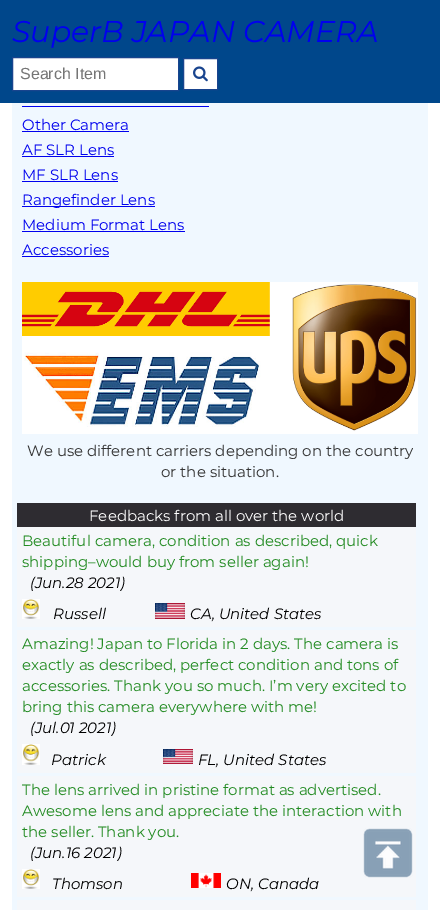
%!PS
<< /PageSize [440 910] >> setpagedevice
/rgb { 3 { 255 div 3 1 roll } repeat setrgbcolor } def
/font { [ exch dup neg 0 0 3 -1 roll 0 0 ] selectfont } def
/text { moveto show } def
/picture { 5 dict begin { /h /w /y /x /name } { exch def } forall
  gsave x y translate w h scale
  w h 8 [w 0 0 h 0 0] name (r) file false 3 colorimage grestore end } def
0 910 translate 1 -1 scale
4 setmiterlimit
255 255 255 rgb
0 0 440 910 rectfill
0 71 139 rgb
0 0 440 103 rectfill
255 255 255 rgb
12.5 57.5 moveto 166 0 rlineto 0 33 rlineto -166 0 rlineto closepath gsave fill grestore
25 68 142 rgb
stroke
255 255 255 rgb
183.5 58.5 moveto 34 0 rlineto 0 31 rlineto -34 0 rlineto closepath gsave fill grestore
25 68 142 rgb
stroke
(img_01.rgb) 193 66 15 16 picture
240 248 255 rgb
12 103 416 807 rectfill
0 0 238 rgb
22 106 187 1 rectfill
22 131 107 1 rectfill
22 156 92 1 rectfill
22 181 96 1 rectfill
22 206 133 1 rectfill
22 231 163 1 rectfill
22 256 87 1 rectfill
(img_02.rgb) 22 282 396 152 picture
46 44 49 rgb
17 503 399 24 rectfill
245 247 250 rgb
17 527 399 100 rectfill
(img_03.rgb) 22 599 18 20 picture
(img_04.rgb) 155 603 30 16 picture
17 630 399 143 rectfill
(img_05.rgb) 22 744 18 21 picture
(img_06.rgb) 163 749 30 15 picture
17 776 399 121 rectfill
(img_03.rgb) 22 869 18 20 picture
(img_07.rgb) 191 873 30 15 picture
17 900 399 10 rectfill
(img_08.rgb) 363 828 50 50 picture
/Montserrat-Italic 30 font
0 0 238 rgb
(SuperB JAPAN CAMERA) 12 42 text
/LiberationSans-Regular 16 font
117 117 117 rgb
(Search Item) 20 79 text
/Montserrat-Regular 15 font
0 0 238 rgb
(Other Camera) 22 130 text
(AF SLR Lens) 22 155 text
(MF SLR Lens) 22 180 text
(Rangefinder Lens) 22 205 text
(Medium Format Lens) 22 230 text
(Accessories) 22 255 text
51 51 51 rgb
(We use different carriers depending on the country) 27 456 text
(or the situation.) 161 477 text
255 255 255 rgb
(Feedbacks from all over the world) 89 521 text
34 139 34 rgb
(Beautiful camera, condition as described, quick) 22 546 text
(shipping–would buy from seller again!) 22 567 text
/Montserrat-Italic 15 font
0 0 0 rgb
(\(Jun.28 2021\)) 30 588 text
(Russell) 53 619 text
(CA, United States) 190 619 text
/Montserrat-Regular 15 font
34 139 34 rgb
(Amazing! Japan to Florida in 2 days. The camera is) 22 649 text
(exactly as described, perfect condition and tons of) 22 670 text
(accessories. Thank you so much. I’m very excited to) 22 691 text
(bring this camera everywhere with me!) 22 712 text
/Montserrat-Italic 15 font
0 0 0 rgb
(\(Jul.01 2021\)) 30 733 text
(Patrick) 51 765 text
(FL, United States) 198 765 text
/Montserrat-Regular 15 font
34 139 34 rgb
(The lens arrived in pristine format as advertised.) 22 795 text
(Awesome lens and appreciate the interaction with) 22 816 text
(the seller. Thank you.) 22 837 text
/Montserrat-Italic 15 font
0 0 0 rgb
(\(Jun.16 2021\)) 30 858 text
(Thomson) 52 889 text
(ON, Canada) 226 889 text
showpage
